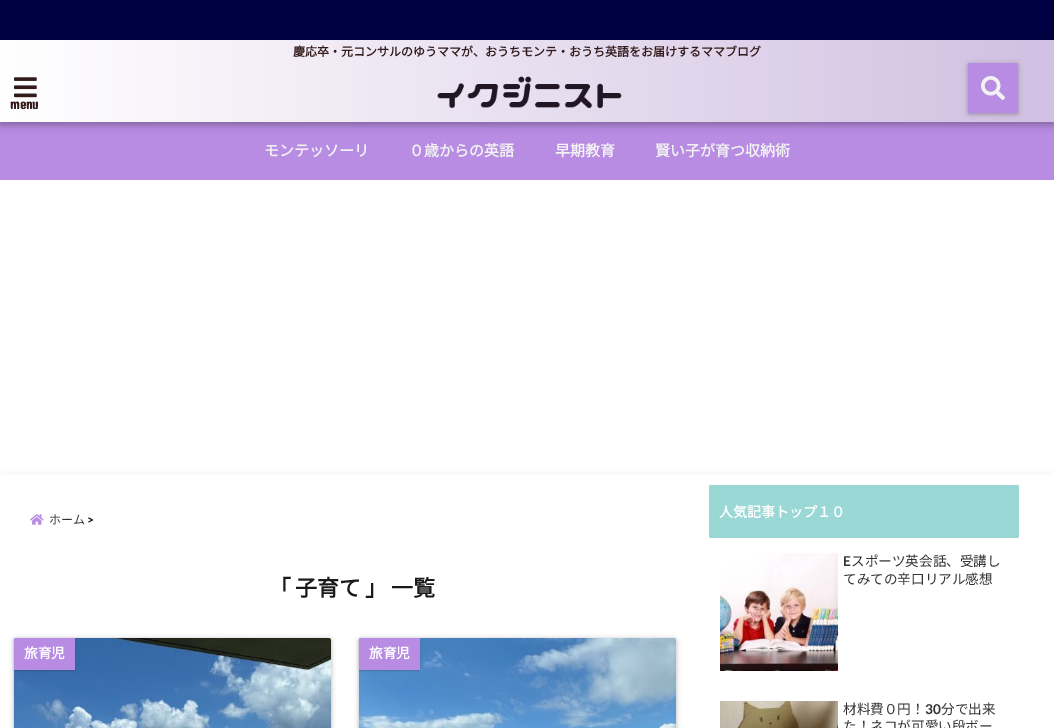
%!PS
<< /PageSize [1054 728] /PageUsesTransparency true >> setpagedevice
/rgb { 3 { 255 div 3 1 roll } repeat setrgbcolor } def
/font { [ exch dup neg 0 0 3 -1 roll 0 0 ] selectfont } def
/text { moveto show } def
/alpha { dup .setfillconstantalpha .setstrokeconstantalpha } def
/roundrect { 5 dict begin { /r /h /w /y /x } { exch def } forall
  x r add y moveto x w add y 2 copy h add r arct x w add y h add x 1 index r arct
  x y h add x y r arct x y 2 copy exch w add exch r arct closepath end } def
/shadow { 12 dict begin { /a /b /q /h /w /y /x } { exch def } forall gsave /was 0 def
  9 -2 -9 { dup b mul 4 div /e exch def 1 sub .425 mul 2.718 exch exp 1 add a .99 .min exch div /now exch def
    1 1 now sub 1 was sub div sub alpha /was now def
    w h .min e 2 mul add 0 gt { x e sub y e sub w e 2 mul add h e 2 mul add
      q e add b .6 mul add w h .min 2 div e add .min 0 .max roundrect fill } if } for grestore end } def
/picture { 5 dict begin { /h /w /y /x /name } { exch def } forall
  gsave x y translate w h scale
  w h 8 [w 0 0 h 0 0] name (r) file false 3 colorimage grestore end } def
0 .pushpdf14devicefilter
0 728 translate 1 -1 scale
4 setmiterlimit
255 255 255 rgb
0 0 1054 728 rectfill
0 1 66 rgb
0 0 1054 40 rectfill
183 140 226 rgb
0 122 1054 58 rectfill
0 0 0 rgb
0 43 1054 82 0 4 0.3 shadow
gsave 0 40 moveto 1054 0 rlineto 0 82 rlineto -1054 0 rlineto closepath clip newpath
<< /ShadingType 2 /ColorSpace /DeviceRGB /Coords [0 81 1054 81] /Extend [true true] /Function << /FunctionType 2 /Domain [0 1] /C0 [1 1 1] /C1 [0.82 0.753 0.886] /N 1 >> >> shfill grestore
(img_01.rgb) 14 77 23 21 picture
(img_02.rgb) 437 76 185 33 picture
968 64 50 50 1.5 2.5 0.3 shadow
183 140 226 rgb
968 63 50 50 1.5 roundrect fill
(img_03.rgb) 981 76 24 24 picture
0 0 0 rgb
5 485 1044 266 0 7.5 0.3 shadow
255 255 255 rgb
0 475 1054 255 2 roundrect fill
(img_04.rgb) 30 514 14 11 picture
0 0 0 rgb
14 639 317 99 2 2.5 0.3 shadow
(img_05.rgb) 14 638 317 90 picture
15 640 59 30 0 1.5 0.3 shadow
183 140 226 rgb
16 638 moveto 59 0 rlineto 0 32 rlineto -61 0 rlineto 0 -30 rlineto 0 -1 1 -2 2 -2 rcurveto closepath fill
0 0 0 rgb
359 639 317 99 2 2.5 0.3 shadow
(img_06.rgb) 359 638 317 90 picture
360 640 59 30 0 1.5 0.3 shadow
183 140 226 rgb
361 638 moveto 59 0 rlineto 0 32 rlineto -61 0 rlineto 0 -30 rlineto 0 -1 1 -2 2 -2 rcurveto closepath fill
153 216 212 rgb
709 485 310 53 2 roundrect fill
(img_07.rgb) 720 553 118 118 picture
(img_08.rgb) 720 701 118 27 picture
/NotoSansJP-Bold 12 font
51 27 27 rgb
(慶応卒・元コンサルのゆうママが、おうちモンテ・おうち英語をお届けするママブログ) 293 56 text
/DenkOne-Bold 12 font
(menu) 10 109 text
/NotoSansJP-Bold 15 font
242 242 242 rgb
(モンテッソーリ) 264 156 text
(０歳からの英語) 409 156 text
(早期教育) 555 156 text
(賢い子が育つ収納術) 655 156 text
/NotoSansJP-Thin 12 font
51 51 51 rgb
(ホーム) 49 524 text
/Lato-Bold 12 font
1 1 1 rgb
(>) 87 524 text
/NotoSansJP-Bold 22 font
26 26 26 rgb
(「) 269 596 text
(子育て) 295 596 text
365 596 moveto -1 0 32 (」 一覧) widthshow
/NotoSansJP-Bold 13.6 font
255 255 255 rgb
(旅育児) 24 658 text
(旅育児) 369 658 text
/NotoSansJP-Bold 14 font
(人気記事トップ１０) 719 517 text
/Lato-Bold 13.6 font
51 51 51 rgb
(E) 843 566 text
/NotoSansJP-Thin 13.6 font
(スポーツ英会話、受講し) 851 566 text
(てみての辛口リアル感想) 843 584 text
(材料費０円！) 843 714 text
/Lato-Bold 13.6 font
(30) 925 714 text
/NotoSansJP-Thin 13.6 font
(分で出来) 941 714 text
(た！ネコが可愛い段ボー) 843 731 text
.poppdf14devicefilter showpage
